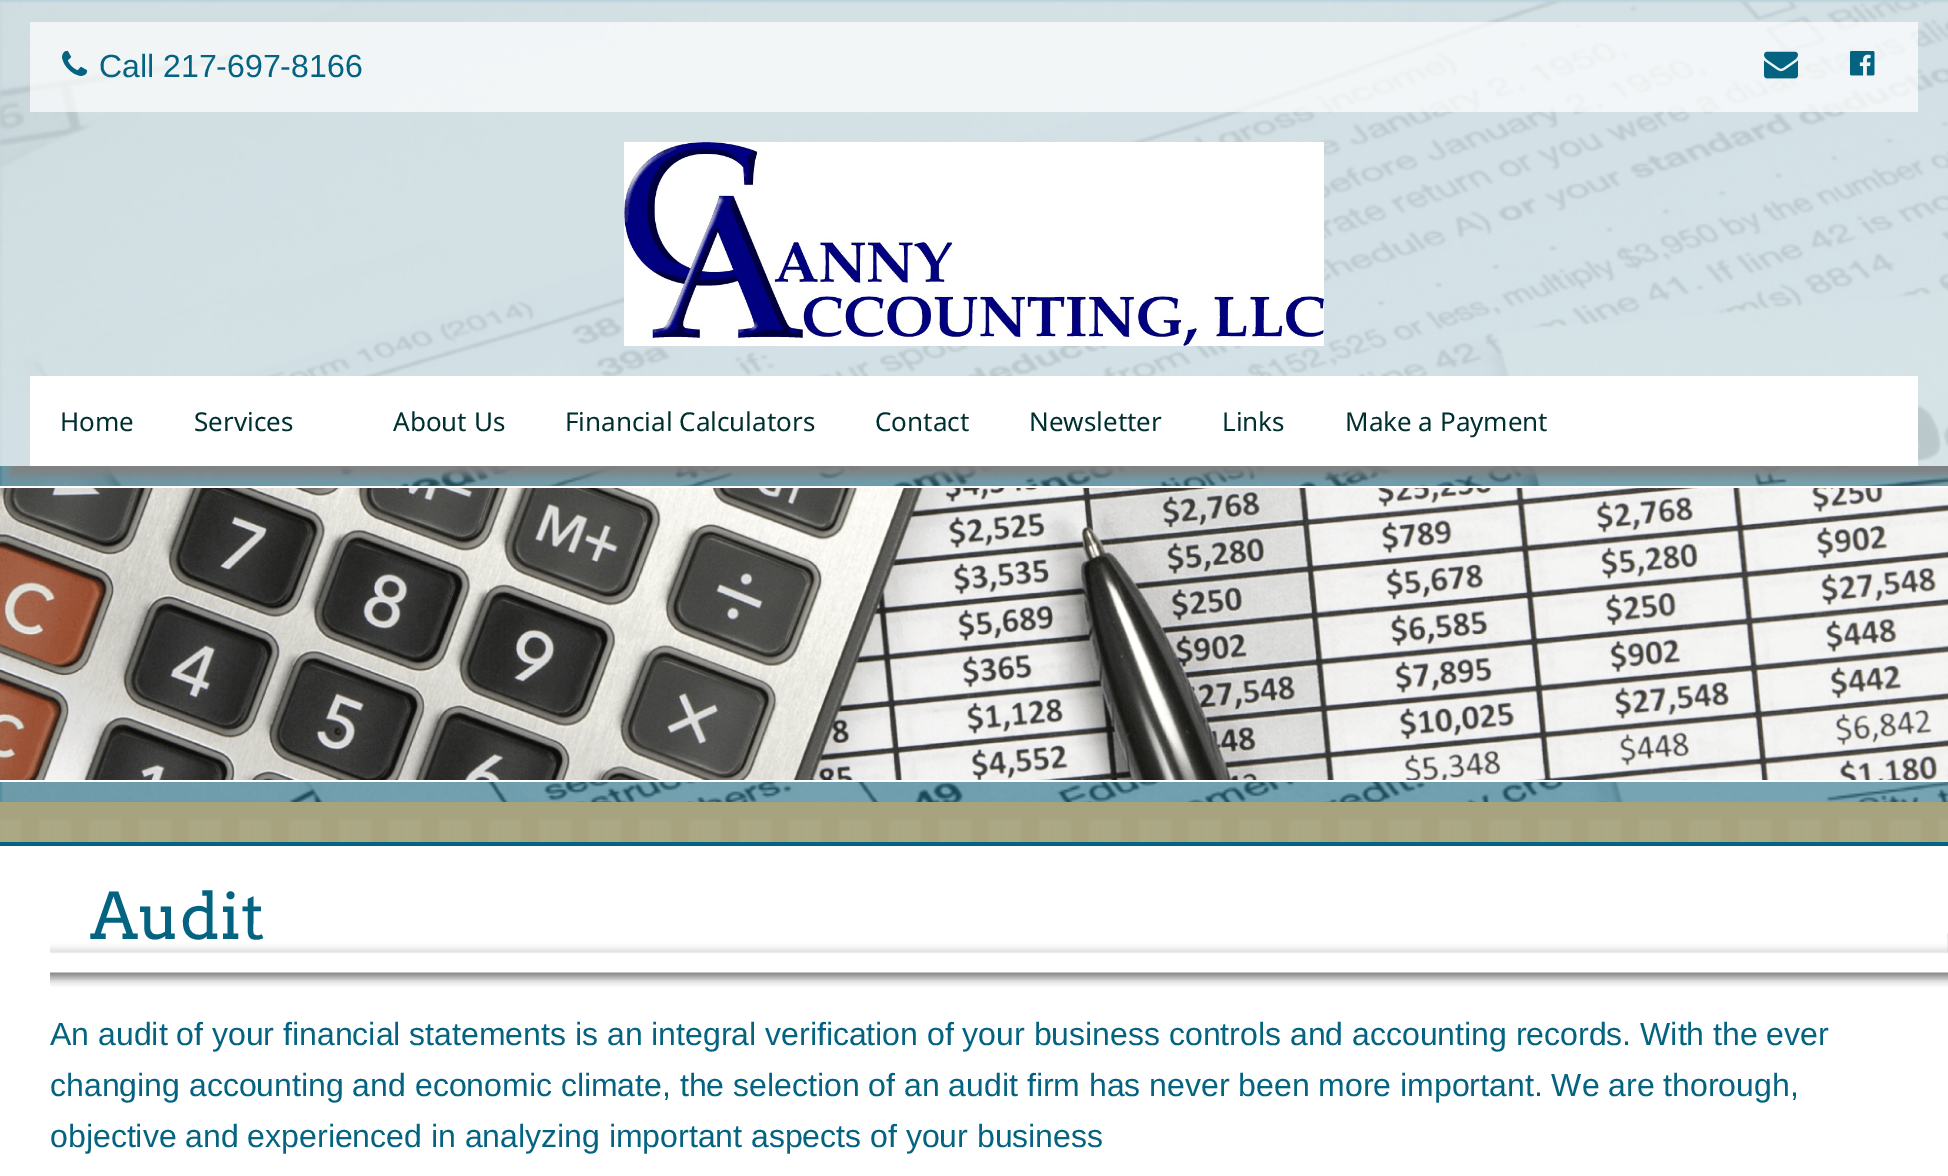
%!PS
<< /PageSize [1948 1176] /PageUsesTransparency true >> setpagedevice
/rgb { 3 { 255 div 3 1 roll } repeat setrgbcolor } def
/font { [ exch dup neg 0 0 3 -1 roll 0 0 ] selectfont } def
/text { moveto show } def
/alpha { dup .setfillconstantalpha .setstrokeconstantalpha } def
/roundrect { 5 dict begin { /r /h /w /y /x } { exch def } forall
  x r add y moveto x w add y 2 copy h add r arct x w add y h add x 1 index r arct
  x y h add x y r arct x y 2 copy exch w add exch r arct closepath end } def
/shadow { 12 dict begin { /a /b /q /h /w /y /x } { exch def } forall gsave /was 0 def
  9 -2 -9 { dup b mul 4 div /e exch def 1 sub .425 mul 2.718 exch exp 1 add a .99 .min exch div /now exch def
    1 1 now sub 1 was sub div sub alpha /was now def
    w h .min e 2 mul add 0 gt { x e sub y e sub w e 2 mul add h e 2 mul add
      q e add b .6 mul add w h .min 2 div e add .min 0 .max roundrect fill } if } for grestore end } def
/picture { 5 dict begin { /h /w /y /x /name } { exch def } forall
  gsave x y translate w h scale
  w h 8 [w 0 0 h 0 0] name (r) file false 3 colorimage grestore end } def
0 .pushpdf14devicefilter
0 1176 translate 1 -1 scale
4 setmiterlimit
4 99 128 rgb
0 0 1948 1176 rectfill
(img_01.rgb) 0 0 1948 802 picture
gsave
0 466 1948 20 rectclip
128 128 128 rgb
10 10 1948 466 0 5 1 shadow
grestore
0.7 alpha
255 255 255 rgb
0 0 1948 466 rectfill
30 22 1888 90 rectfill
1 alpha
(img_02.rgb) 62 50 26 26 picture
(img_03.rgb) 1764 51 34 28 picture
(img_04.rgb) 1850 51 25 25 picture
(img_05.rgb) 624 142 700 204 picture
1578 376 340 90 rectfill
30 376 134 90 rectfill
164 376 1414 90 rectfill
0 486 1948 2 rectfill
0 780 1948 2 rectfill
(img_06.rgb) 0 488 1948 292 picture
167 163 126 rgb
0 802 1948 40 rectfill
(img_07.rgb) 0 819 1948 23 picture
255 255 255 rgb
0 846 1948 330 rectfill
(img_08.rgb) 50 933 1898 54 picture
/LiberationSans-Regular 32 font
4 99 128 rgb
(Call 217-697-8166) 99 77 text
/NotoSans-Regular 26 font
0 47 47 rgb
(Home) 60 431 text
(Services) 194 431 text
(About Us) 393 431 text
(Financial Calculators) 565 431 text
(Contact) 875 431 text
(Newsletter) 1029 431 text
(Links) 1222 431 text
(Make a Payment) 1345 431 text
/Arvo-Regular 64 font
4 99 128 rgb
(Audit) 90 939 text
/LiberationSans-Regular 32 font
(An audit of your financial statements is an integral verification of your business controls and accounting records. With the ever) 50 1045 text
(changing accounting and economic climate, the selection of an audit firm has never been more important. We are thorough,) 50 1096 text
(objective and experienced in analyzing important aspects of your business) 50 1147 text
.poppdf14devicefilter showpage
